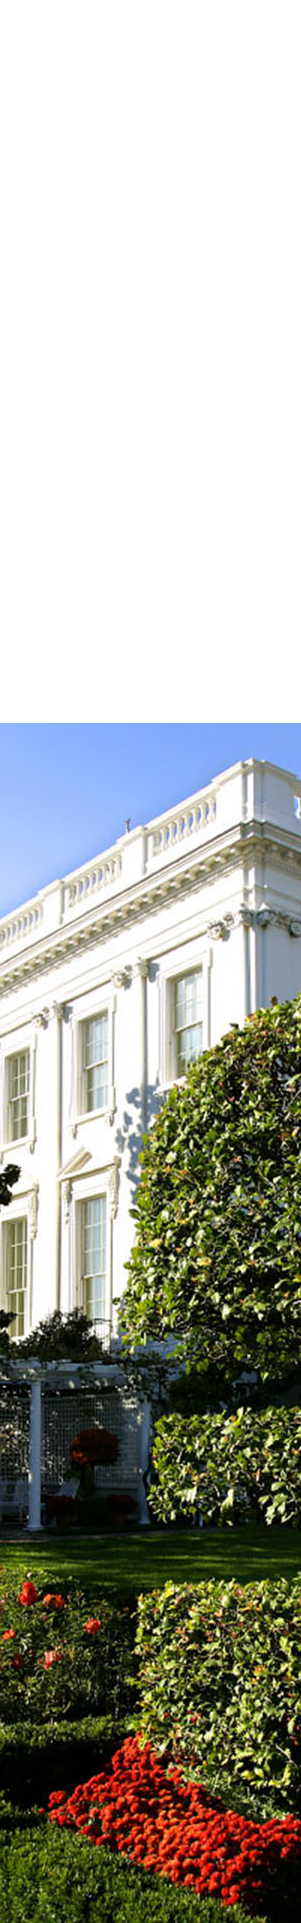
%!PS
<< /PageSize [301 1923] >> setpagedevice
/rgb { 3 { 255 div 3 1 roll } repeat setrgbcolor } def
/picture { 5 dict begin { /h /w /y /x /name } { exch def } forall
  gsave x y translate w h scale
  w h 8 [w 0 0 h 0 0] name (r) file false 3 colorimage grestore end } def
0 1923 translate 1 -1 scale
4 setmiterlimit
255 255 255 rgb
0 0 301 1923 rectfill
(img_01.rgb) 0 723 301 1200 picture
showpage
